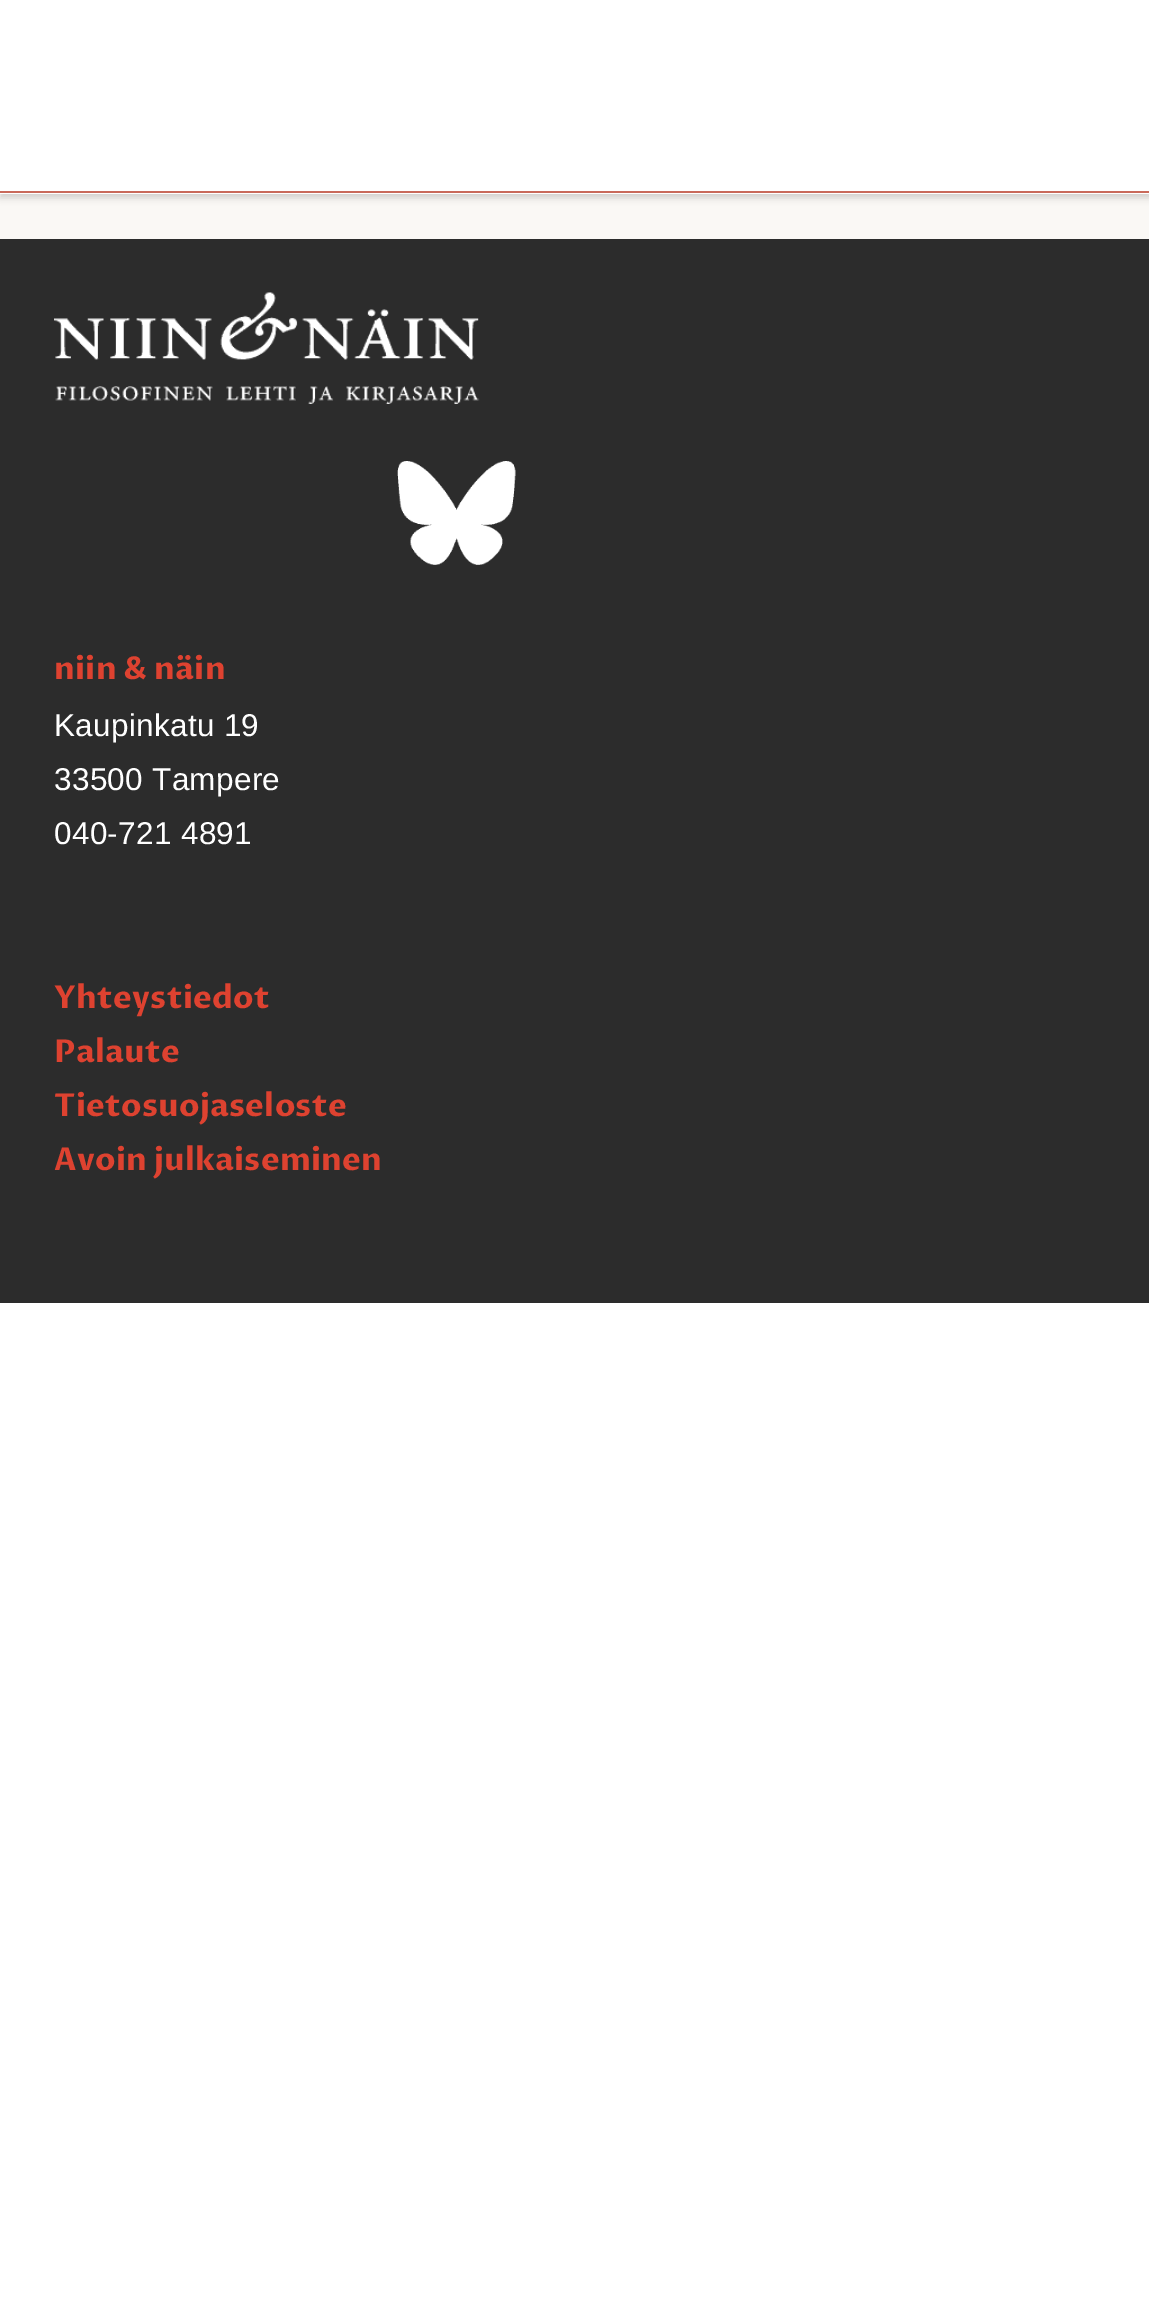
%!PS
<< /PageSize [1149 2318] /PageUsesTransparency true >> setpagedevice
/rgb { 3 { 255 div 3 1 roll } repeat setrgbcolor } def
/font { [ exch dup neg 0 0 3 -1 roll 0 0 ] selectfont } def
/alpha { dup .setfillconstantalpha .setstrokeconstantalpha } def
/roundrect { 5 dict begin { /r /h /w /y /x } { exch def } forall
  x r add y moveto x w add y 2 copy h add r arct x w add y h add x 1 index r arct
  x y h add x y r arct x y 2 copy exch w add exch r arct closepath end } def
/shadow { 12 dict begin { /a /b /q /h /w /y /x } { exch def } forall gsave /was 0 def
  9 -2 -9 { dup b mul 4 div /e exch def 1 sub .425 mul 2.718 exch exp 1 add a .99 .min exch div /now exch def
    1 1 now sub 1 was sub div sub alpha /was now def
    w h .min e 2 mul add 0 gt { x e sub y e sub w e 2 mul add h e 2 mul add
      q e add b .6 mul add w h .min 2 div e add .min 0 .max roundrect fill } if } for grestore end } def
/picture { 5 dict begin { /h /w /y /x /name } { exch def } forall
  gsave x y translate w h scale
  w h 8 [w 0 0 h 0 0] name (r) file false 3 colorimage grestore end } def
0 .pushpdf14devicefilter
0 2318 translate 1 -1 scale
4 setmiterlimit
255 255 255 rgb
0 0 1149 2318 rectfill
250 248 245 rgb
0 194 1149 45 rectfill
gsave
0 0 moveto 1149 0 rlineto 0 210 rlineto -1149 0 rlineto closepath 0 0 moveto 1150 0 rlineto 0 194 rlineto -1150 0 rlineto closepath eoclip newpath
0 0 0 rgb
0 5 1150 193 0 3.5 0.16 shadow
grestore
201 106 91 rgb
0 191 1149 2 rectfill
44 44 44 rgb
0 239 1149 1064 rectfill
(img_01.rgb) 54 292 426 112 picture
(img_02.rgb) 397 461 119 104 picture
/ProzaLibre-Bold 31.5 font
222 66 48 rgb
54 679 moveto 0.3 0 (niin & näin) ashow
/LiberationSans-Regular 31.5 font
255 255 255 rgb
54 736 moveto 0.3 0 (Kaupinkatu 19) ashow
54 790 moveto 0.3 0 (33500 Tampere) ashow
54 844 moveto 0.3 0 (040-721 4891) ashow
/ProzaLibre-Bold 31.5 font
222 66 48 rgb
54 1008 moveto 0.3 0 (Yhteystiedot) ashow
54 1062 moveto 0.3 0 (Palaute) ashow
54 1116 moveto 0.3 0 (Tietosuojaseloste) ashow
54 1170 moveto 0.3 0 (Avoin julkaiseminen) ashow
.poppdf14devicefilter showpage
